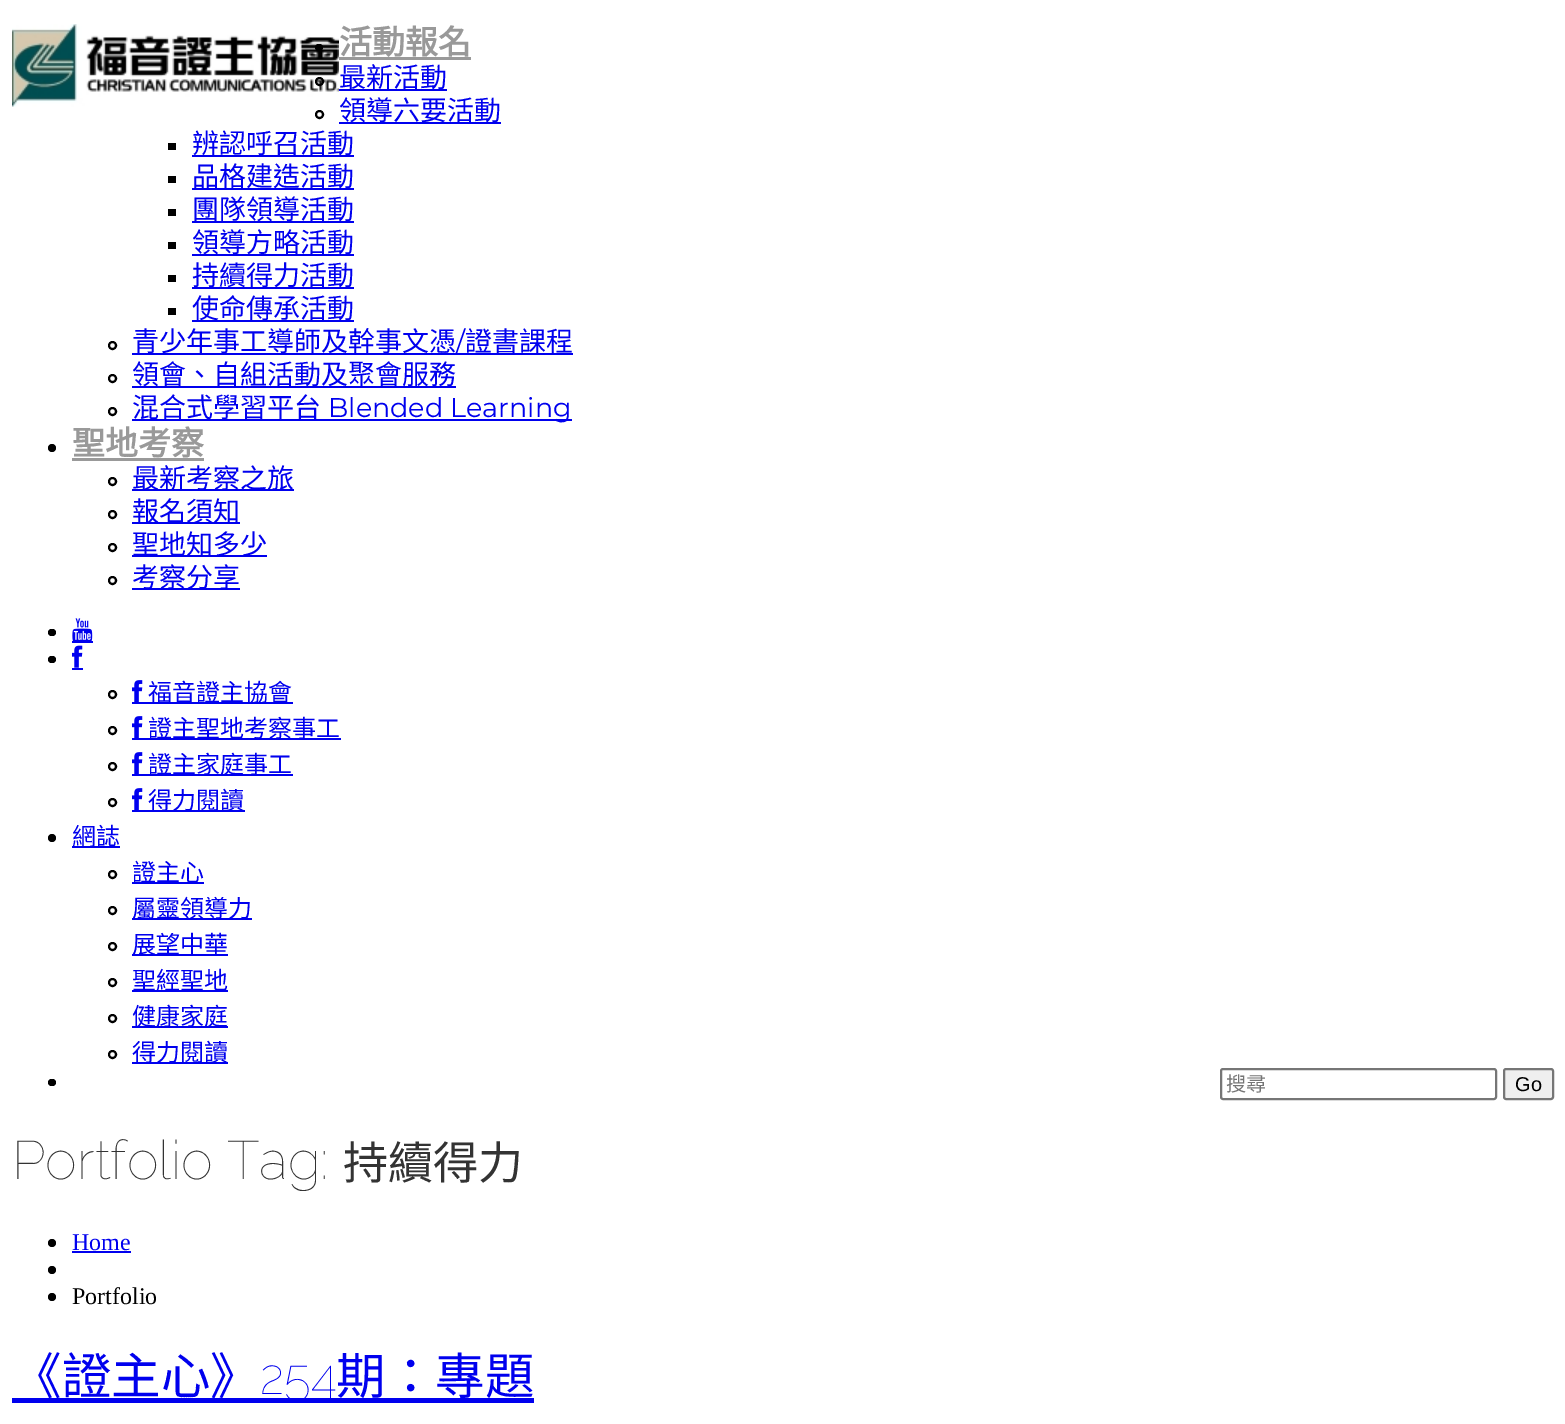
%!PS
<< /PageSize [1565 1424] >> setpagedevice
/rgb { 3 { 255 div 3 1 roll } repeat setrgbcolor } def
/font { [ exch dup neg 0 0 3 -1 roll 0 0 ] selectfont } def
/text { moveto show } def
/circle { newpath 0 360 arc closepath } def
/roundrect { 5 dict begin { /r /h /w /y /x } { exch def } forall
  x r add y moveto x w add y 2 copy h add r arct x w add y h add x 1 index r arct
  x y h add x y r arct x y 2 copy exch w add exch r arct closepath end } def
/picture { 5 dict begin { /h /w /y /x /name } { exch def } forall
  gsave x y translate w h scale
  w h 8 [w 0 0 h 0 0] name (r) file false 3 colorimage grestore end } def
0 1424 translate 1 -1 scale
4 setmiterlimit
255 255 255 rgb
0 0 1565 1424 rectfill
(img_01.rgb) 12 24 327 83 picture
0 0 0 rgb
315 44 8 7 3.5 roundrect fill
153 153 153 rgb
339 57 132 3 rectfill
0 0 0 rgb
2 setlinewidth
319.5 81.5 3.5 circle stroke
0 0 238 rgb
339 89 108 2 rectfill
0 0 0 rgb
319.5 114.5 3.5 circle stroke
0 0 238 rgb
339 122 162 2 rectfill
0 0 0 rgb
168 143 8 7 rectfill
0 0 238 rgb
192 155 162 2 rectfill
0 0 0 rgb
168 176 8 7 rectfill
0 0 238 rgb
192 188 162 2 rectfill
0 0 0 rgb
168 209 8 7 rectfill
0 0 238 rgb
192 221 162 2 rectfill
0 0 0 rgb
168 242 8 7 rectfill
0 0 238 rgb
192 254 162 2 rectfill
0 0 0 rgb
168 275 8 7 rectfill
0 0 238 rgb
192 287 162 2 rectfill
0 0 0 rgb
168 308 8 7 rectfill
0 0 238 rgb
192 320 162 2 rectfill
0 0 0 rgb
112.5 345.5 3.5 circle stroke
0 0 238 rgb
132 353 441 2 rectfill
0 0 0 rgb
112.5 378.5 3.5 circle stroke
0 0 238 rgb
132 386 324 2 rectfill
0 0 0 rgb
112.5 411.5 3.5 circle stroke
0 0 238 rgb
132 419 440 2 rectfill
0 0 0 rgb
52 448 4 circle fill
153 153 153 rgb
72 458 132 3 rectfill
0 0 0 rgb
112.5 481.5 3.5 circle stroke
0 0 238 rgb
132 489 162 2 rectfill
0 0 0 rgb
112.5 514.5 3.5 circle stroke
0 0 238 rgb
132 522 108 2 rectfill
0 0 0 rgb
112.5 547.5 3.5 circle stroke
0 0 238 rgb
132 555 135 2 rectfill
0 0 0 rgb
112.5 580.5 3.5 circle stroke
0 0 238 rgb
132 588 108 2 rectfill
0 0 0 rgb
48 629 8 7 3.5 roundrect fill
0 0 238 rgb
72 641 21 2 rectfill
(img_02.rgb) 72 618 21 23 picture
0 0 0 rgb
48 656 8 7 3.5 roundrect fill
0 0 238 rgb
72 668 11 2 rectfill
(img_03.rgb) 72 645 11 23 picture
0 0 0 rgb
112.5 694.5 3.5 circle stroke
0 0 238 rgb
132 702 161 2 rectfill
(img_04.rgb) 132 680 11 22 picture
0 0 0 rgb
112.5 730.5 3.5 circle stroke
0 0 238 rgb
132 738 209 2 rectfill
(img_04.rgb) 132 716 11 22 picture
0 0 0 rgb
112.5 766.5 3.5 circle stroke
0 0 238 rgb
132 774 161 2 rectfill
(img_04.rgb) 132 752 11 22 picture
0 0 0 rgb
112.5 802.5 3.5 circle stroke
0 0 238 rgb
132 810 113 2 rectfill
(img_04.rgb) 132 788 11 22 picture
0 0 0 rgb
52 838 4 circle fill
0 0 238 rgb
72 846 48 2 rectfill
0 0 0 rgb
112.5 874.5 3.5 circle stroke
0 0 238 rgb
132 882 72 2 rectfill
0 0 0 rgb
112.5 910.5 3.5 circle stroke
0 0 238 rgb
132 918 120 2 rectfill
0 0 0 rgb
112.5 946.5 3.5 circle stroke
0 0 238 rgb
132 954 96 2 rectfill
0 0 0 rgb
112.5 982.5 3.5 circle stroke
0 0 238 rgb
132 990 96 2 rectfill
0 0 0 rgb
112.5 1018.5 3.5 circle stroke
0 0 238 rgb
132 1026 96 2 rectfill
0 0 0 rgb
112.5 1054.5 3.5 circle stroke
0 0 238 rgb
132 1062 96 2 rectfill
0 0 0 rgb
48 1079 8 7 3.5 roundrect fill
118 118 118 rgb
1221 1069 275 30 2 roundrect stroke
239 239 239 rgb
1504 1069 49 30 2 roundrect gsave fill grestore
118 118 118 rgb
stroke
0 0 0 rgb
52 1243 4 circle fill
0 0 238 rgb
72 1251 59 2 rectfill
0 0 0 rgb
52 1270 4 circle fill
52 1297 4 circle fill
0 0 238 rgb
12 1398 522 5 rectfill
/NotoSansCJKHK-Bold 33 font
153 153 153 rgb
(活動報名) 339 54 text
/NotoSansCJKHK-Regular 27 font
0 0 238 rgb
(最新活動) 339 87 text
(領導六要活動) 339 120 text
(辨認呼召活動) 192 153 text
(品格建造活動) 192 186 text
(團隊領導活動) 192 219 text
(領導方略活動) 192 252 text
(持續得力活動) 192 285 text
(使命傳承活動) 192 318 text
(青少年事工導師及幹事文憑) 132 351 text
/Montserrat-Thin 27 font
(/) 456 351 text
/NotoSansCJKHK-Regular 27 font
(證書課程) 465 351 text
(領會、自組活動及聚會服務) 132 384 text
(混合式學習平台) 132 417 text
/Montserrat-Thin 27 font
(Blended Learning) 328 417 text
/NotoSansCJKHK-Bold 33 font
153 153 153 rgb
(聖地考察) 72 455 text
/NotoSansCJKHK-Regular 27 font
0 0 238 rgb
(最新考察之旅) 132 488 text
(報名須知) 132 521 text
(聖地知多少) 132 554 text
(考察分享) 132 587 text
/NotoSansCJKHK-Regular 24 font
(福音證主協會) 148 701 text
(證主聖地考察事工) 148 737 text
(證主家庭事工) 148 773 text
(得力閱讀) 148 809 text
(網誌) 72 845 text
(證主心) 132 881 text
(屬靈領導力) 132 917 text
(展望中華) 132 953 text
(聖經聖地) 132 989 text
(健康家庭) 132 1025 text
(得力閱讀) 132 1061 text
/NotoSansCJKHK-Regular 20 font
117 117 117 rgb
(搜尋) 1226 1091 text
/LiberationSans-Regular 20 font
0 0 0 rgb
(Go) 1515 1091 text
/Raleway-Thin 54 font
51 51 51 rgb
(Portfolio Tag:) 12 1179 text
/NotoSansCJKHK-Regular 45 font
(持續得力) 343 1179 text
/LiberationSerif-Regular 24 font
0 0 238 rgb
(Home) 72 1250 text
0 0 0 rgb
(Portfolio) 72 1304 text
/NotoSansCJKHK-Regular 49.5 font
0 0 238 rgb
(《證主心》) 12 1394 text
/Raleway-Thin 49.5 font
(254) 260 1394 text
/NotoSansCJKHK-Regular 49.5 font
(期：專題) 336 1394 text
showpage
